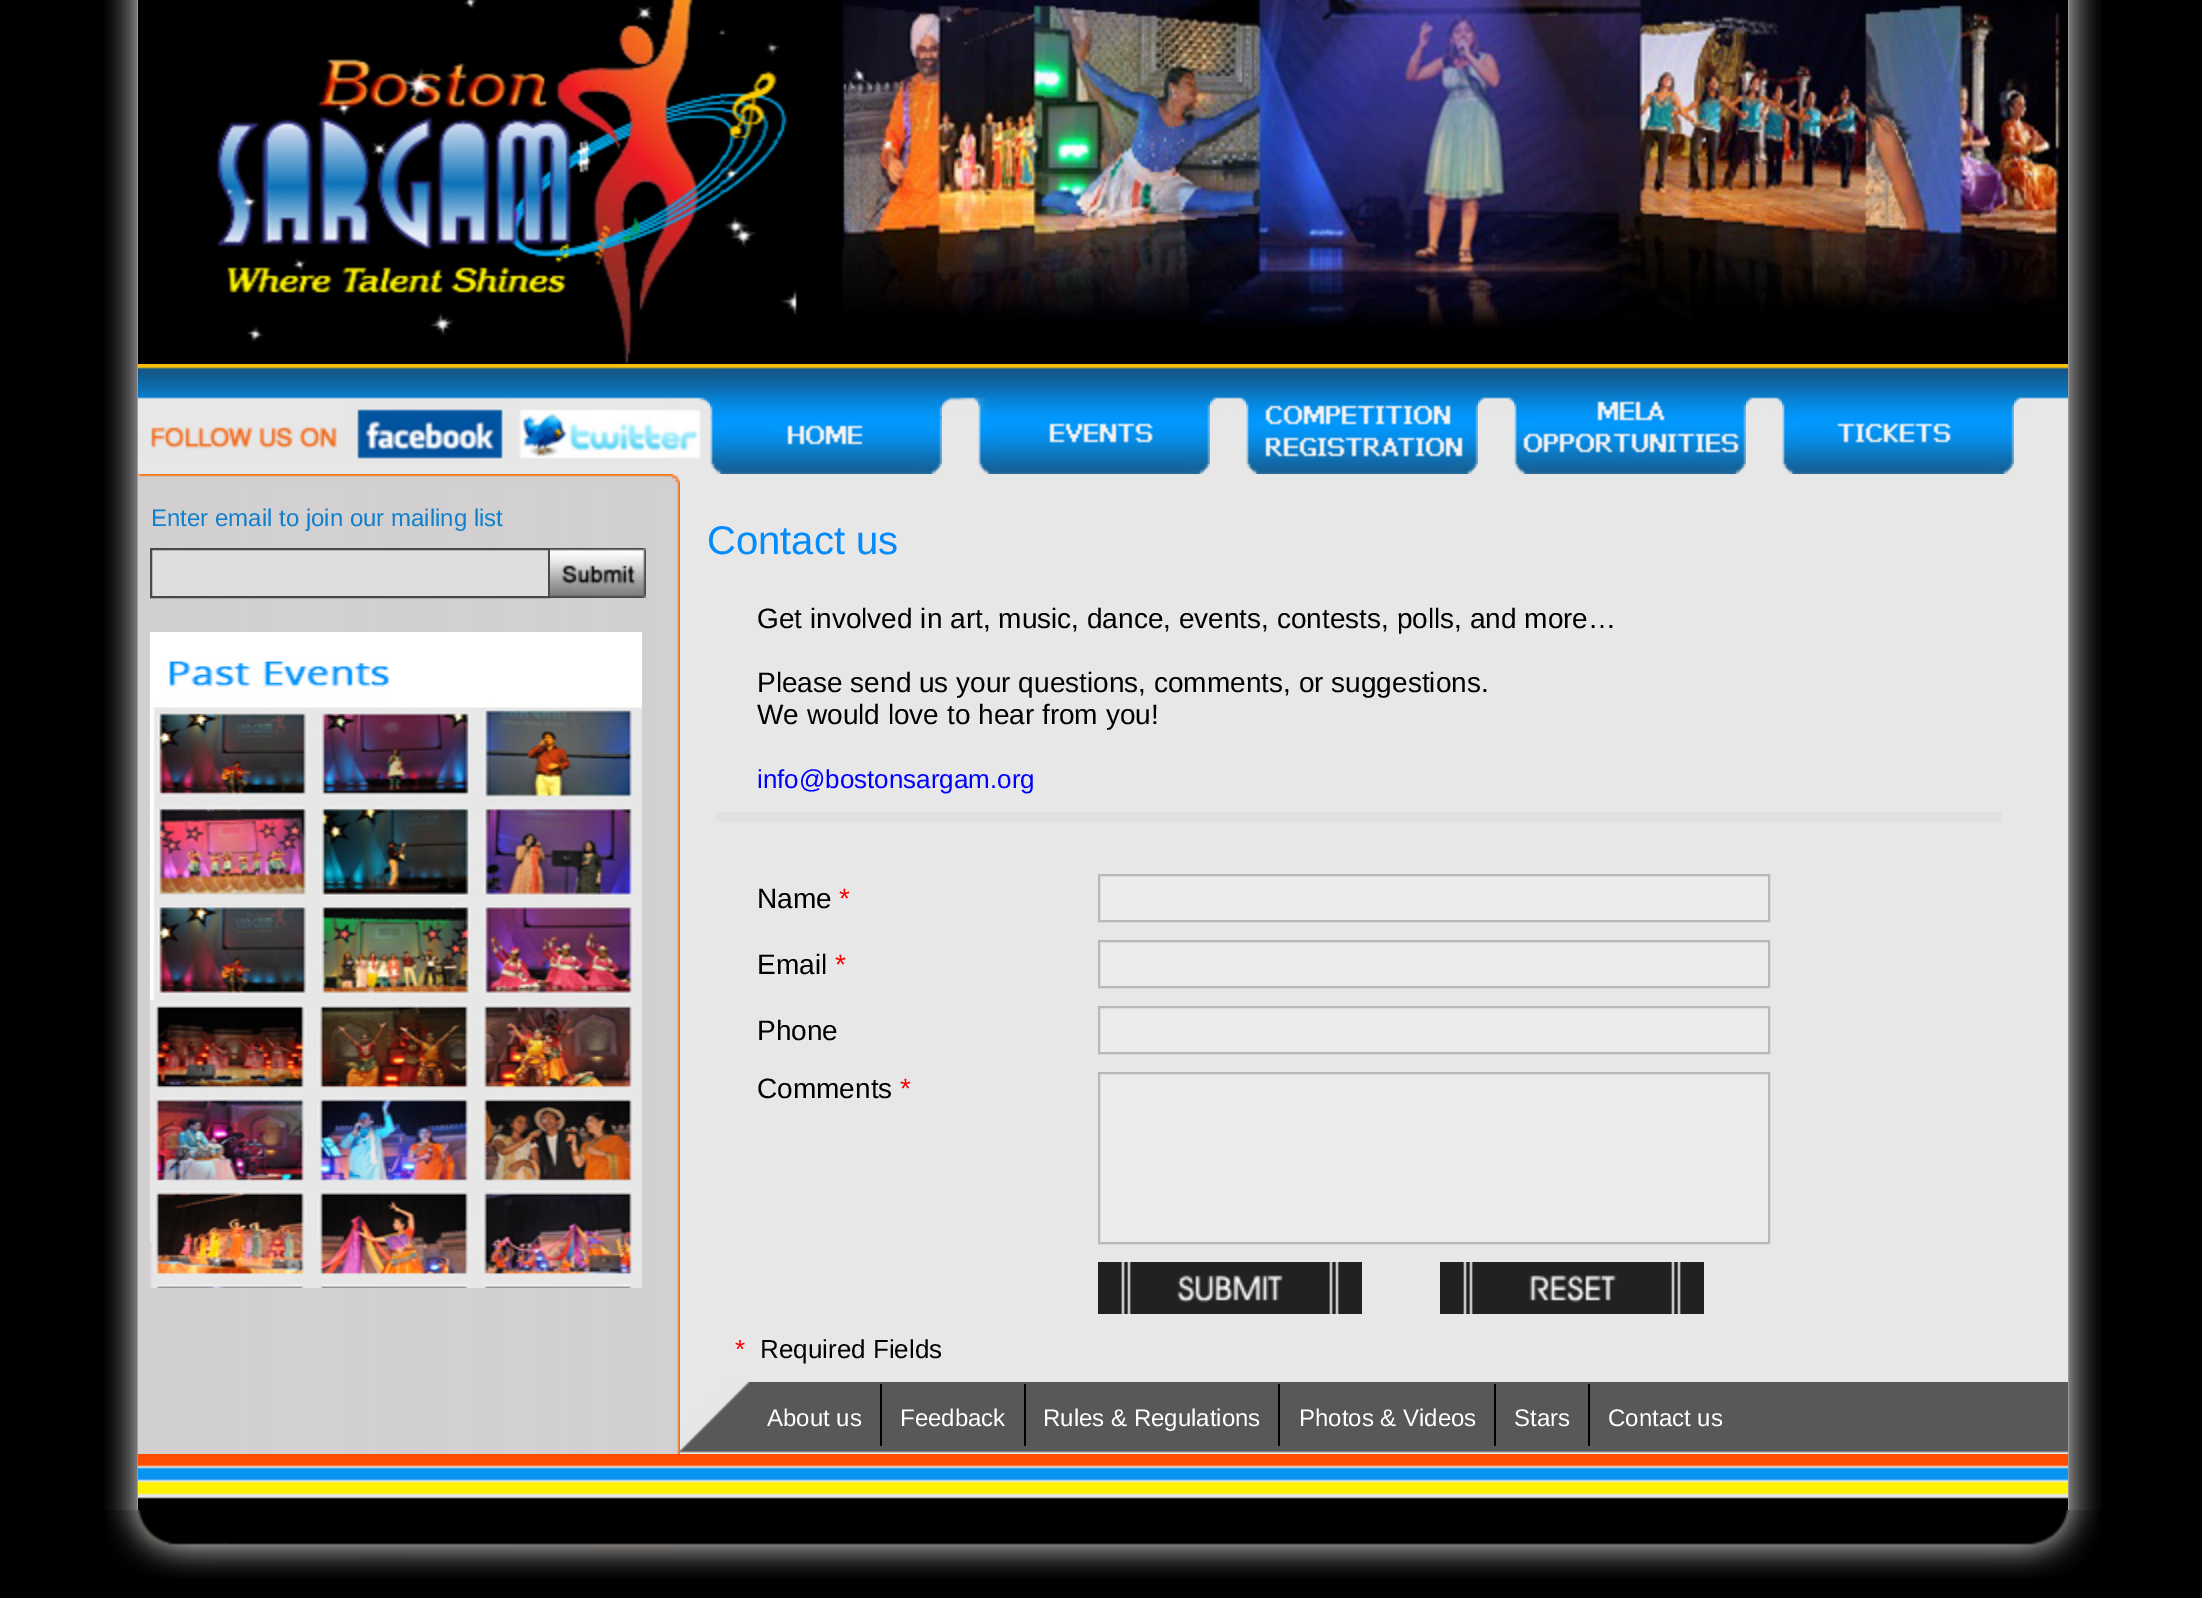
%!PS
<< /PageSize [2202 1598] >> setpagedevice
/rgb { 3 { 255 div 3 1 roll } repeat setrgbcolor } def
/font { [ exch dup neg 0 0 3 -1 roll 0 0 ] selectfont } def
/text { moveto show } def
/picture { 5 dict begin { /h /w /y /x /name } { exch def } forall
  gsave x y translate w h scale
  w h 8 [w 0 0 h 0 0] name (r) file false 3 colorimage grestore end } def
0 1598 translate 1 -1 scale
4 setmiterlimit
0 0 0 rgb
0 0 2202 1598 rectfill
(img_01.rgb) 104 0 1998 1510 picture
138 0 1930 364 rectfill
(img_02.rgb) 215 0 1851 364 picture
(img_03.rgb) 138 364 572 110 picture
(img_04.rgb) 710 364 232 110 picture
(img_05.rgb) 942 364 36 110 picture
(img_06.rgb) 978 364 232 110 picture
(img_07.rgb) 1210 364 36 110 picture
(img_08.rgb) 1246 364 232 110 picture
(img_07.rgb) 1478 364 36 110 picture
(img_09.rgb) 1514 364 232 110 picture
(img_07.rgb) 1746 364 36 110 picture
(img_10.rgb) 1782 364 232 110 picture
(img_11.rgb) 2014 364 54 110 picture
231 231 231 rgb
680 474 1388 980 rectfill
(img_12.rgb) 138 483 542 971 picture
(img_13.rgb) 138 474 542 9 picture
223 222 222 rgb
151 549 moveto 398 0 rlineto 0 48 rlineto -398 0 rlineto closepath gsave fill grestore
74 73 73 rgb
2 setlinewidth
stroke
(img_14.rgb) 550 548 96 50 picture
(img_15.rgb) 150 632 492 656 picture
225 225 225 rgb
716 812 1286 10 rectfill
235 235 235 rgb
1099 875 moveto 670 0 rlineto 0 46 rlineto -670 0 rlineto closepath gsave fill grestore
185 183 183 rgb
stroke
235 235 235 rgb
1099 941 moveto 670 0 rlineto 0 46 rlineto -670 0 rlineto closepath gsave fill grestore
185 183 183 rgb
stroke
235 235 235 rgb
1099 1007 moveto 670 0 rlineto 0 46 rlineto -670 0 rlineto closepath gsave fill grestore
185 183 183 rgb
stroke
235 235 235 rgb
1099 1073 moveto 670 0 rlineto 0 170 rlineto -670 0 rlineto closepath gsave fill grestore
185 183 183 rgb
stroke
(img_16.rgb) 1098 1262 264 52 picture
(img_17.rgb) 1440 1262 264 52 picture
(img_18.rgb) 680 1382 70 71 picture
(img_19.rgb) 750 1382 1318 71 picture
0 0 0 rgb
880 1384 2 62 rectfill
1024 1384 2 62 rectfill
1278 1384 2 62 rectfill
1494 1384 2 62 rectfill
1588 1384 2 62 rectfill
(img_20.rgb) 138 1454 1930 56 picture
(img_21.rgb) 106 1510 1994 68 picture
/LiberationSans-Regular 24 font
17 128 204 rgb
(Enter email to join our mailing list) 151 526 text
/LiberationSans-Regular 40 font
2 139 253 rgb
(Contact us) 707 554 text
/LiberationSans-Regular 28 font
0 0 0 rgb
(Get involved in art, music, dance, events, contests, polls, and more…) 757 628 text
(Please send us your questions, comments, or suggestions.) 757 692 text
(We would love to hear from you!) 757 724 text
/LiberationSans-Regular 26 font
0 0 255 rgb
(info@bostonsargam.org) 757 788 text
/LiberationSans-Regular 28 font
0 0 0 rgb
(Name) 757 908 text
255 0 0 rgb
(*) 839 908 text
0 0 0 rgb
(Email) 757 974 text
255 0 0 rgb
(*) 835 974 text
0 0 0 rgb
(Phone) 757 1040 text
(Comments) 757 1098 text
255 0 0 rgb
(*) 900 1098 text
/LiberationSans-Regular 26 font
(*) 735 1358 text
0 0 0 rgb
(Required Fields) 760 1358 text
/LiberationSans-Regular 24 font
255 255 255 rgb
(About us) 767 1426 text
(Feedback) 900 1426 text
(Rules & Regulations) 1043 1426 text
(Photos & Videos) 1299 1426 text
(Stars) 1514 1426 text
(Contact us) 1608 1426 text
showpage
